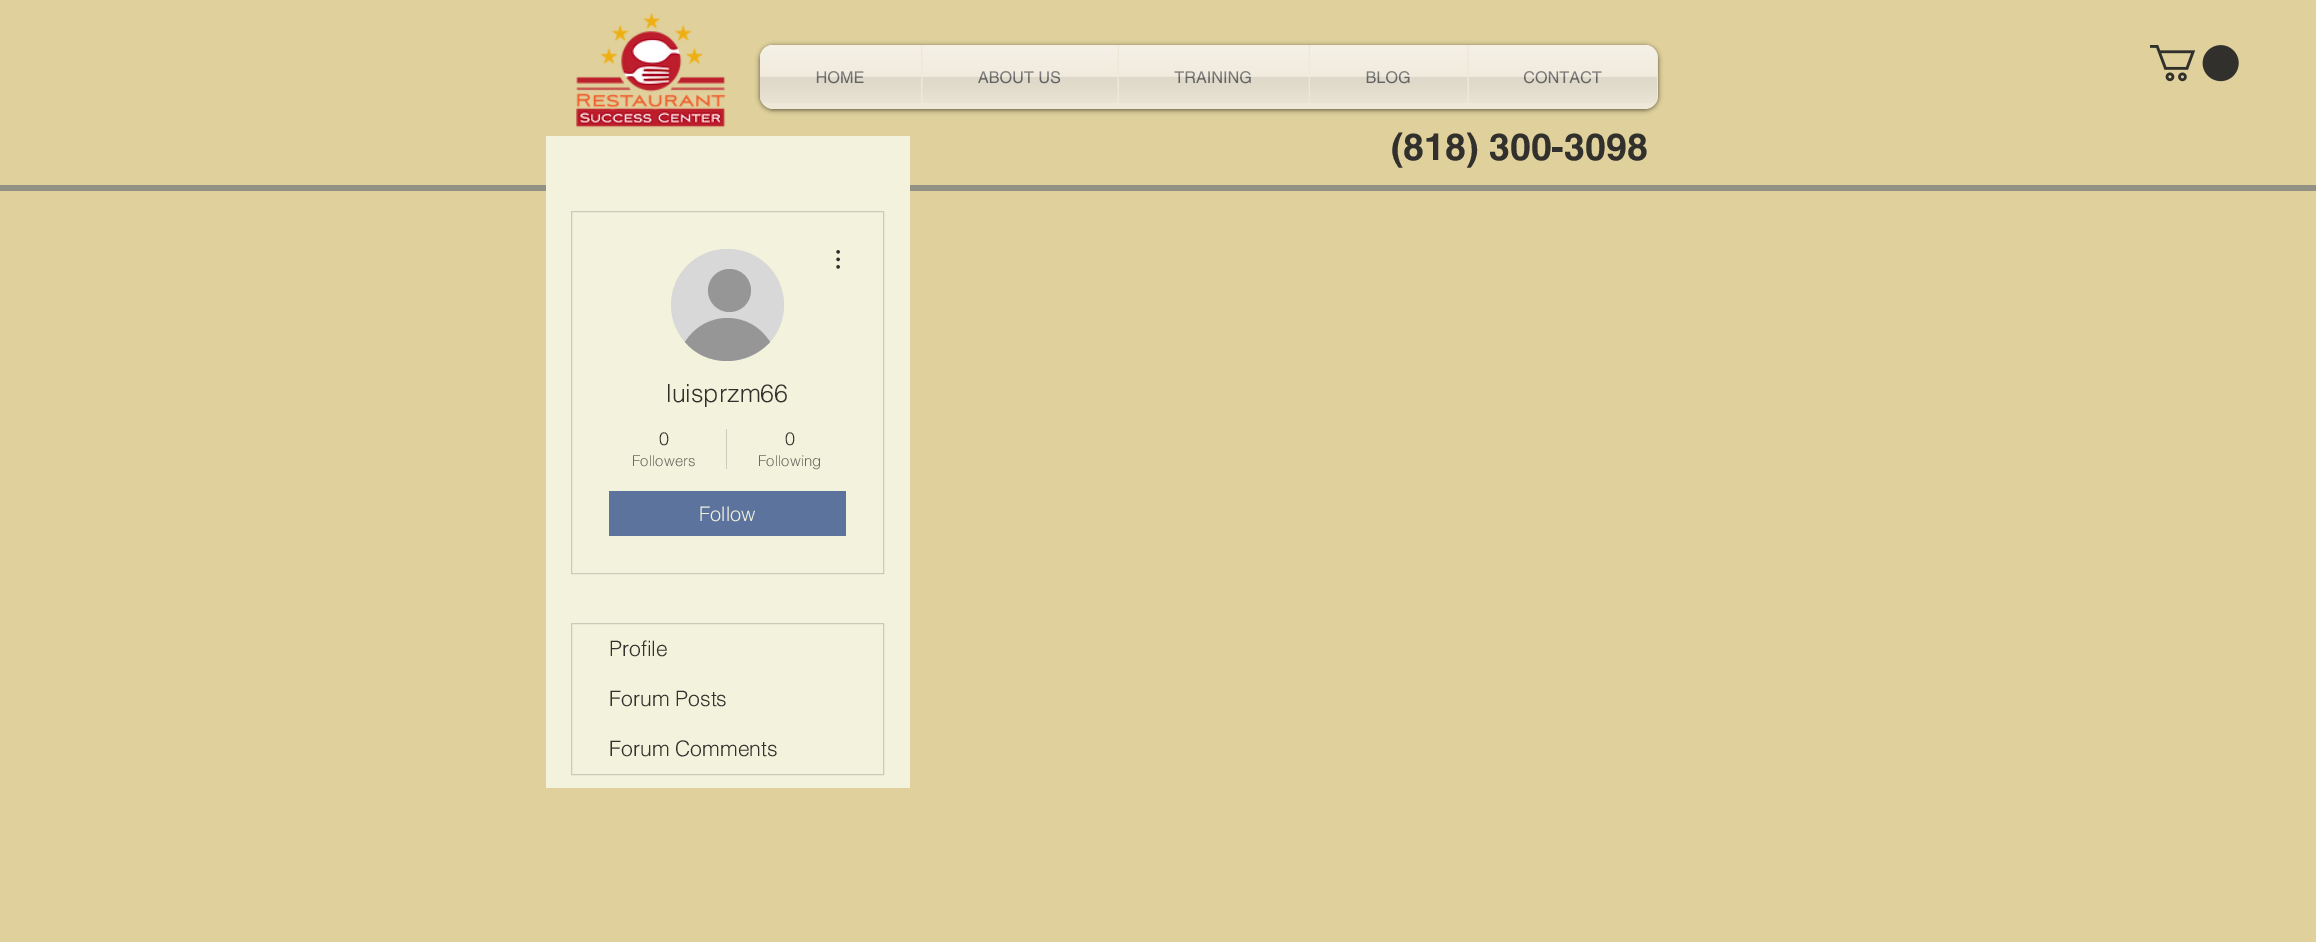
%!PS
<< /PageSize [2316 942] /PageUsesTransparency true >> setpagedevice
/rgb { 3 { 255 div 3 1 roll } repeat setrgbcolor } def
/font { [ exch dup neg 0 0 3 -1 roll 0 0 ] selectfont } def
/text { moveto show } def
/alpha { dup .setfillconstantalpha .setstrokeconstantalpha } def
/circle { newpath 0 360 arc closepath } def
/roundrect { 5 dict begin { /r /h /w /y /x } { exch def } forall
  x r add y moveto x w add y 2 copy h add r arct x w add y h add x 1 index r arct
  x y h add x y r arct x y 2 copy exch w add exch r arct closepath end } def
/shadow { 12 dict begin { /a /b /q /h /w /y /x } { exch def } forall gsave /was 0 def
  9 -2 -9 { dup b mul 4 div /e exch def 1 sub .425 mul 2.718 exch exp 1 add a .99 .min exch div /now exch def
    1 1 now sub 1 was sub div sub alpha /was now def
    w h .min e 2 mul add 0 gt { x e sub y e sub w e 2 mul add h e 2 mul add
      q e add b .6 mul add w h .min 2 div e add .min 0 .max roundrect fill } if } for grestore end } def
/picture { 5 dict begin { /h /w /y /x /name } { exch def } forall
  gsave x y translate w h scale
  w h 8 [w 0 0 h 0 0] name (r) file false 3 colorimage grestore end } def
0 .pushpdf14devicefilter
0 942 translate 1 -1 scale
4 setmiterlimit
224 209 156 rgb
0 0 2316 942 rectfill
(img_01.rgb) 576 12 150 116 picture
0 0 0 rgb
760 46 898 64 13 2.5 0.6 shadow
(img_02.rgb) 760 45 897 58 picture
238 232 216 rgb
773 45 moveto 148 0 rlineto 0 64 rlineto -148 0 rlineto -7 0 -13 -6 -13 -13 rcurveto 0 -38 rlineto 0 -7 6 -13 13 -13 rcurveto closepath fill
921 45 547 64 rectfill
1468 45 moveto 177 0 rlineto 7 0 13 6 13 13 rcurveto 0 38 rlineto 0 7 -6 13 -13 13 rcurveto -177 0 rlineto closepath fill
(img_08.rgb) 2150 45 89 37 picture
146 145 132 rgb
0 185 2316 6 rectfill
243 242 220 rgb
546 136 364 652 rectfill
204 203 185 rgb
571.5 211.5 312 362 rectstroke
216 216 216 rgb
671 249 113 112 56 roundrect fill
150 150 150 rgb
729.5 290.5 21.5 circle fill
727 361 moveto 16 0 32 -7 43 -19 rcurveto -20 -32 -65 -32 -85 0 rcurveto 10 12 25 19 42 19 rcurveto closepath fill
(img_09.rgb) 836 250 4 19 picture
204 203 185 rgb
726 429 1 40 rectfill
92 115 157 rgb
609 491 237 45 rectfill
204 203 185 rgb
571.5 623.5 312 151 rectstroke
/helvetica-Bold 16.25 font
105 105 105 rgb
(HOME) 816 83 text
(img_03.rgb) 760 45 161 58 picture
(ABOUT US) 978 83 text
(img_04.rgb) 922 45 196 58 picture
(TRAINING) 1174 83 text
(img_05.rgb) 1119 45 190 58 picture
(BLOG) 1366 83 text
(img_06.rgb) 1310 45 158 58 picture
(CONTACT) 1523 83 text
(img_07.rgb) 1469 45 188 58 picture
/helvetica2-Bold 37.5 font
49 48 44 rgb
(\(818\) 300-3098) 1391 160 text
/helvetica-Light 25 font
(luisprzm66) 666 402 text
/helvetica-Light 18 font
(0) 659 445 text
/helvetica-Light 15 font
107 106 97 rgb
(Followers) 632 466 text
/helvetica-Light 18 font
49 48 44 rgb
(0) 785 445 text
/helvetica-Light 15 font
107 106 97 rgb
(Following) 758 466 text
/helvetica-Light 20 font
243 242 220 rgb
(Follow) 699 521 text
/helvetica-Light 21.25 font
49 48 44 rgb
(Profile) 609 656 text
(Forum Posts) 609 706 text
(Forum Comments) 609 756 text
.poppdf14devicefilter showpage
